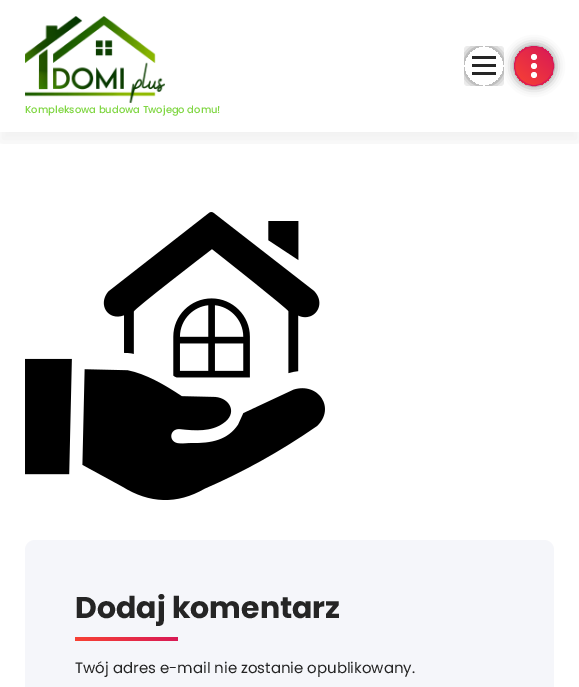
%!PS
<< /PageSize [579 687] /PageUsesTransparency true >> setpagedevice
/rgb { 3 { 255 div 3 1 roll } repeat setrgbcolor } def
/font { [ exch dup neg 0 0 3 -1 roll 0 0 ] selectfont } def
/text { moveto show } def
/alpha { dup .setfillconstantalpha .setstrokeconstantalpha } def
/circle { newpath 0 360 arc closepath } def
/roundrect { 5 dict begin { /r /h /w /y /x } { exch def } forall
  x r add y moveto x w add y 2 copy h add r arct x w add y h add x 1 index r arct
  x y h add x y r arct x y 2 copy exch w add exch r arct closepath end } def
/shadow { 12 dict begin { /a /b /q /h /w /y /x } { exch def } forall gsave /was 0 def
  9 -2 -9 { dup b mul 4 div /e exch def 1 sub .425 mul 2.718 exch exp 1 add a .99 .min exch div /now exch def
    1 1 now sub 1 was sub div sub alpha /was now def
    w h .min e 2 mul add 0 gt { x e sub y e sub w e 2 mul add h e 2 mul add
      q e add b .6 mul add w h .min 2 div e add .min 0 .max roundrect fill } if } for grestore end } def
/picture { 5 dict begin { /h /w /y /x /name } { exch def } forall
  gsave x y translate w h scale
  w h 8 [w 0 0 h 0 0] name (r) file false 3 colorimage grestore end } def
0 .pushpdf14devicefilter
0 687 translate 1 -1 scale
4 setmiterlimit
255 255 255 rgb
0 0 579 687 rectfill
gsave
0 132 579 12 rectclip
0 0 0 rgb
0 10 579 132 0 7.5 0.05 shadow
grestore
gsave
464 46 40 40 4 roundrect clip newpath
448 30 moveto 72 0 rlineto 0 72 rlineto -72 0 rlineto closepath 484 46 moveto 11 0 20 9 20 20 rcurveto 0 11 -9 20 -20 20 rcurveto -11 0 -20 -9 -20 -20 rcurveto 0 -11 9 -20 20 -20 rcurveto closepath eoclip newpath
0 0 0 rgb
464 46 40 40 20 5 0.5 shadow
grestore
37 37 37 rgb
472 56 24 3 rectfill
472 64 24 3 rectfill
472 72 24 3 rectfill
0 0 0 rgb
514 46 40 40 20 5 0.5 shadow
gsave
514 46 40 40 20 roundrect clip newpath
gsave 515 47 moveto 38 0 rlineto 0 38 rlineto -38 0 rlineto closepath clip newpath
<< /ShadingType 2 /ColorSpace /DeviceRGB /Coords [552 46 516 86] /Extend [true true] /Function << /FunctionType 2 /Domain [0 1] /C0 [0.847 0.098 0.337] /C1 [0.973 0.259 0.2] /N 1 >> >> shfill grestore
grestore
216 25 86 rgb
534 66 19.5 circle stroke
255 255 255 rgb
534 66 3 circle fill
534 57 3 circle fill
534 75 3 circle fill
(img_01.rgb) 25 16 140 87 picture
(img_02.rgb) 25 212 300 288 picture
245 246 250 rgb
25 540 529 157 10 roundrect fill
gsave 75 637 moveto 103 0 rlineto 0 4 rlineto -103 0 rlineto closepath clip newpath
<< /ShadingType 2 /ColorSpace /DeviceRGB /Coords [151 612 102 666] /Extend [true true] /Function << /FunctionType 2 /Domain [0 1] /C0 [0.847 0.098 0.337] /C1 [0.973 0.259 0.2] /N 1 >> >> shfill grestore
/Poppins-Medium 10 font
127 214 66 rgb
(Kompleksowa budowa Twojego domu!) 25 113 text
/Poppins-Bold 30 font
37 37 37 rgb
(Dodaj komentarz) 75 618 text
/Poppins-Regular 15 font
(Twój adres e-mail nie zostanie opublikowany.) 75 673 text
.poppdf14devicefilter showpage
